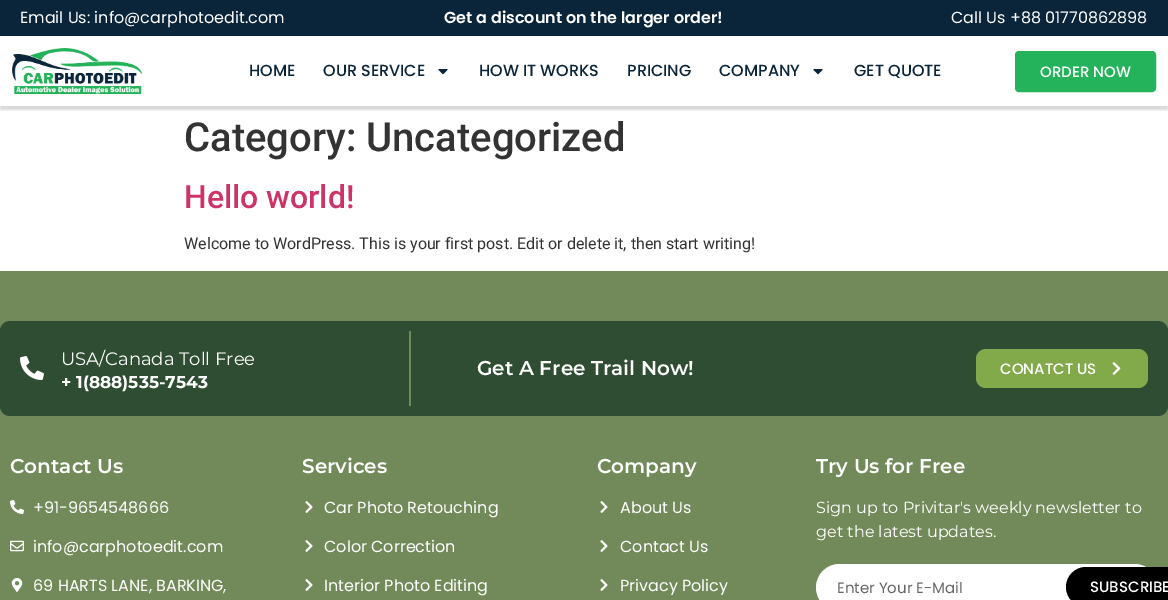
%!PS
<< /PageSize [1168 600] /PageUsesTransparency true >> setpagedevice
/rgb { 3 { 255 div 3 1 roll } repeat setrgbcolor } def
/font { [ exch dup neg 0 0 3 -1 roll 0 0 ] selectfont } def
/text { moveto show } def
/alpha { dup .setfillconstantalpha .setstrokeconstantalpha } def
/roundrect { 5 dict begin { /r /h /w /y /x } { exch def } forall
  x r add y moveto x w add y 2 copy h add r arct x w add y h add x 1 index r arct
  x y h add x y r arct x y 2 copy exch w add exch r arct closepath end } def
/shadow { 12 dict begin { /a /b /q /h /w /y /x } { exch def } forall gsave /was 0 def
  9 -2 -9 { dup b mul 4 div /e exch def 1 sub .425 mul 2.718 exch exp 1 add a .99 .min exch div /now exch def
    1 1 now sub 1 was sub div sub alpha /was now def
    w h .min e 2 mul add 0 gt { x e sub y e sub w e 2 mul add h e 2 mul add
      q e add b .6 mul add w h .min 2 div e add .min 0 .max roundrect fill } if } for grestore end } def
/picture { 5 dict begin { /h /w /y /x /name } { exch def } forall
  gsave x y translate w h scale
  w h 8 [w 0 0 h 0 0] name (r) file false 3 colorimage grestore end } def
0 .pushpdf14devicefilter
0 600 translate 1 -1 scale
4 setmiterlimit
255 255 255 rgb
0 0 1168 600 rectfill
10 37 58 rgb
0 0 1168 36 rectfill
gsave
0 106 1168 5 rectclip
0 0 0 rgb
0 40 1168 70 0 1 0.15 shadow
grestore
(img_01.rgb) 12 48 130 46 picture
(img_02.rgb) 438 69 10 6 picture
(img_02.rgb) 813 69 10 6 picture
36 179 90 rgb
1015.5 51.5 140 40 3.5 roundrect gsave fill grestore
stroke
114 138 90 rgb
0 271 1168 329 rectfill
47 77 50 rgb
0 321 1168 95 10 roundrect fill
114 138 90 rgb
409 331 2 75 rectfill
(img_03.rgb) 20 356 24 24 picture
130 170 74 rgb
976 349 172 39 10 roundrect fill
(img_04.rgb) 1112 362 9 13 picture
(img_05.rgb) 10 500 14 14 picture
(img_06.rgb) 10 540 14 12 picture
(img_07.rgb) 11 578 12 14 picture
(img_08.rgb) 305 501 8 12 picture
(img_08.rgb) 305 540 8 12 picture
(img_08.rgb) 305 579 8 12 picture
(img_08.rgb) 600 501 8 12 picture
(img_08.rgb) 600 540 8 12 picture
(img_08.rgb) 600 579 8 12 picture
255 255 255 rgb
818.5 566.5 337 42 21 roundrect gsave fill grestore
5 setlinewidth
stroke
0 0 0 rgb
1066 567 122 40 20 roundrect fill
/Poppins-Regular 16 font
255 255 255 rgb
(Email Us: info@carphotoedit.com) 20 23 text
/Poppins-SemiBold 16 font
(Get a discount on the larger order!) 444 23 text
/Poppins-Regular 16 font
(Call Us +88 01770862898) 951 23 text
/Poppins-Medium 16 font
10 37 58 rgb
(HOME) 249 76 text
(OUR SERVICE) 323 76 text
(HOW IT WORKS) 479 76 text
(PRICING) 627 76 text
(COMPANY) 719 76 text
(GET QUOTE) 854 76 text
/Poppins-Medium 15 font
255 255 255 rgb
(ORDER NOW) 1040 77 text
/Roboto-Medium 40 font
51 51 51 rgb
(Category: Uncategorized) 184 151 text
/Roboto-Medium 32 font
204 51 102 rgb
(Hello world!) 184 208 text
/Roboto-Regular 16 font
51 51 51 rgb
(Welcome to WordPress. This is your first post. Edit or delete it, then start writing!) 184 249 text
/Montserrat-Regular 18 font
255 255 255 rgb
(USA/Canada Toll Free) 61 365 text
/Montserrat-Bold 17 font
(+ 1\(888\)535-7543) 61 388 text
/Montserrat-SemiBold 20 font
(Get A Free Trail Now!) 477 375 text
/Poppins-Medium 15 font
(CONATCT US) 1000 374 text
/Montserrat-SemiBold 20 font
(Contact Us) 10 473 text
/Poppins-Regular 16 font
(+91-9654548666) 33 513 text
(info@carphotoedit.com) 33 552 text
(69 HARTS LANE, BARKING,) 33 591 text
/Montserrat-SemiBold 20 font
(Services) 302 473 text
/Poppins-Regular 16 font
(Car Photo Retouching) 324 513 text
(Color Correction) 324 552 text
(Interior Photo Editing) 324 591 text
/Montserrat-SemiBold 20 font
(Company) 597 473 text
/Poppins-Regular 16 font
(About Us) 620 513 text
(Contact Us) 620 552 text
(Privacy Policy) 620 591 text
/Montserrat-SemiBold 20 font
(Try Us for Free) 816 473 text
/Montserrat-Regular 16 font
(Sign up to Privitar's weekly newsletter to) 816 513 text
(get the latest updates.) 816 537 text
/Poppins-Regular 15 font
102 102 102 rgb
(Enter Your E-Mail) 837 593 text
/Poppins-Medium 15 font
255 255 255 rgb
(SUBSCRIBE) 1090 592 text
.poppdf14devicefilter showpage
